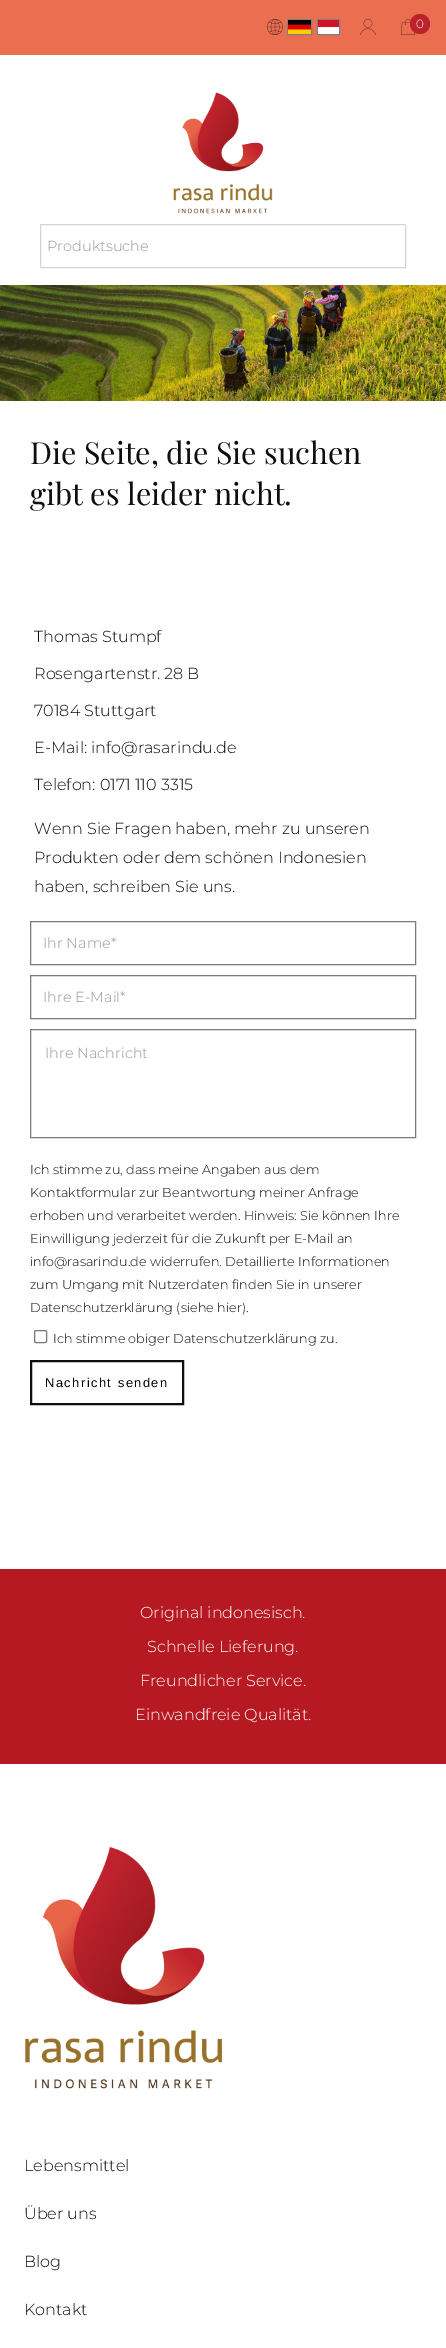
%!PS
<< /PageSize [446 2348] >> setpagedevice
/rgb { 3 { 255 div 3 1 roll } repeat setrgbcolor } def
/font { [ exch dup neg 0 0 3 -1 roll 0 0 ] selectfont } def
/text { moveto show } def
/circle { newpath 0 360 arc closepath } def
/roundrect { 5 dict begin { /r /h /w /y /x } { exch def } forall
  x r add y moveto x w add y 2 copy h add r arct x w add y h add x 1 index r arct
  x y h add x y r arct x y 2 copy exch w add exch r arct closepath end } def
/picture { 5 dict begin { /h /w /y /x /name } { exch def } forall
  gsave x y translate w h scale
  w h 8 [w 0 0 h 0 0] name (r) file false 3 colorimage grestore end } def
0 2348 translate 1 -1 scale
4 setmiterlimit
255 255 255 rgb
0 0 446 2348 rectfill
234 110 79 rgb
0 0 446 55 rectfill
(img_01.rgb) 267 19 16 16 picture
128 128 128 rgb
287.5 19.5 24 15 rectstroke
(img_02.rgb) 288 20 23 14 picture
317.5 19.5 22 15 rectstroke
(img_03.rgb) 318 20 21 14 picture
(img_04.rgb) 360 19 16 16 picture
(img_05.rgb) 400 19 16 16 picture
189 33 42 rgb
420 24 10 circle fill
(img_06.rgb) 173 92 100 122 picture
212 212 212 rgb
40.5 224.5 365 43 0.5 roundrect stroke
(img_07.rgb) 0 285 446 116 picture
123 123 126 rgb
30.5 921.5 385 43 rectstroke
30.5 975.5 385 43 rectstroke
30.5 1029.5 385 108 rectstroke
118 118 118 rgb
34.5 1330.5 12 12 1.5 roundrect stroke
15 13 13 rgb
2 setlinewidth
31 1361 152 43 rectstroke
183 25 34 rgb
0 1569 446 195 rectfill
(img_08.rgb) 25 1846 197 243 picture
/Montserrat-Light 12 font
255 255 255 rgb
(0) 416 28 text
/Montserrat-Light 14.5 font
155 155 155 rgb
(Produktsuche) 47 251 text
/PlayfairDisplay-Regular 30.4 font
15 13 13 rgb
(Die Seite, die Sie suchen) 30 464 text
(gibt es leider nicht.) 30 505 text
/Montserrat-Light 16 font
(Thomas Stumpf) 34 642 text
(Rosengartenstr. 28 B) 34 679 text
(70184 Stuttgart) 34 716 text
(E-Mail: info@rasarindu.de) 34 753 text
(Telefon: 0171 110 3315) 34 790 text
(Wenn Sie Fragen haben, mehr zu unseren) 34 834 text
(Produkten oder dem schönen Indonesien) 34 863 text
(haben, schreiben Sie uns.) 34 892 text
/Montserrat-Light 14.5 font
155 155 155 rgb
(Ihr Name*) 43 948 text
(Ihre E-Mail*) 43 1002 text
(Ihre Nachricht) 45 1058 text
/Montserrat-Light 12.8 font
15 13 13 rgb
(Ich stimme zu, dass meine Angaben aus dem) 30 1174 text
(Kontaktformular zur Beantwortung meiner Anfrage) 30 1197 text
(erhoben und verarbeitet werden. Hinweis: Sie können Ihre) 30 1220 text
(Einwilligung jederzeit für die Zukunft per E-Mail an) 30 1243 text
(info@rasarindu.de widerrufen. Detaillierte Informationen) 30 1266 text
(zum Umgang mit Nutzerdaten finden Sie in unserer) 30 1289 text
(Datenschutzerklärung \(siehe hier\).) 30 1312 text
(Ich stimme obiger Datenschutzerklärung zu.) 53 1343 text
/LiberationSans-Regular 12.8 font
0 0 0 rgb
45 1387 moveto 1.5 0 (Nachricht senden) ashow
/Montserrat-Light 16 font
255 255 255 rgb
(Original indonesisch.) 140 1618 text
(Schnelle Lieferung.) 147 1652 text
(Freundlicher Service.) 140 1686 text
(Einwandfreie Qualität.) 135 1720 text
15 13 13 rgb
(Lebensmittel) 24 2171 text
(Über uns) 24 2219 text
(Blog) 24 2267 text
(Kontakt) 24 2315 text
showpage
